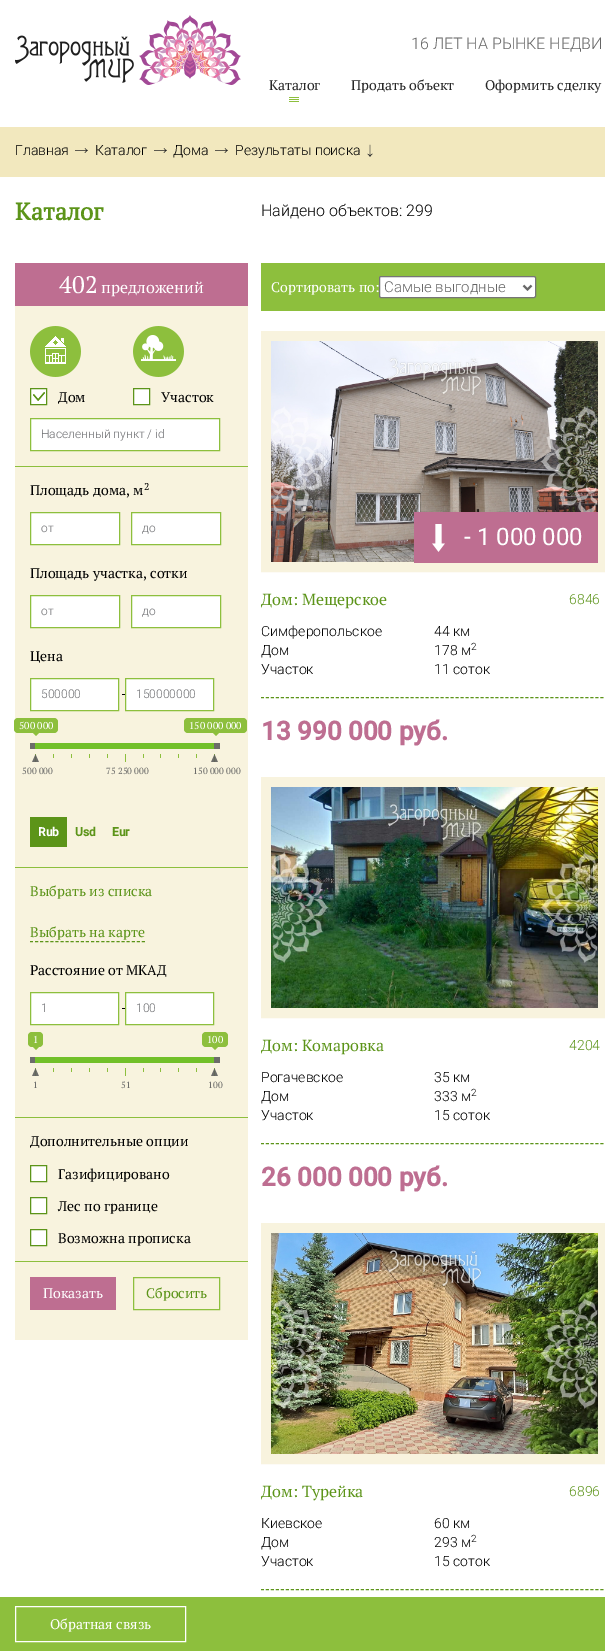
%!PS
<< /PageSize [605 1651] >> setpagedevice
/rgb { 3 { 255 div 3 1 roll } repeat setrgbcolor } def
/font { [ exch dup neg 0 0 3 -1 roll 0 0 ] selectfont } def
/text { moveto show } def
/roundrect { 5 dict begin { /r /h /w /y /x } { exch def } forall
  x r add y moveto x w add y 2 copy h add r arct x w add y h add x 1 index r arct
  x y h add x y r arct x y 2 copy exch w add exch r arct closepath end } def
/picture { 5 dict begin { /h /w /y /x /name } { exch def } forall
  gsave x y translate w h scale
  w h 8 [w 0 0 h 0 0] name (r) file false 3 colorimage grestore end } def
0 1651 translate 1 -1 scale
4 setmiterlimit
255 255 255 rgb
0 0 605 1651 rectfill
(img_01.rgb) 15 15 226 70 picture
(img_02.rgb) 289 97 10 5 picture
242 232 190 rgb
0 127 605 50 rectfill
(img_03.rgb) 75 148 13 5 picture
(img_03.rgb) 154 148 13 5 picture
(img_03.rgb) 215 148 13 5 picture
(img_04.rgb) 367 144 6 13 picture
248 243 222 rgb
15 306 233 1034 rectfill
190 110 145 rgb
15 263 233 43 rectfill
(img_05.rgb) 30 326 51 51 picture
255 255 255 rgb
30.5 388.5 moveto 16 0 rlineto 0 16 rlineto -16 0 rlineto closepath gsave fill grestore
92 148 25 rgb
stroke
(img_06.rgb) 33 392 12 9 picture
(img_07.rgb) 133 326 51 51 picture
255 255 255 rgb
133.5 388.5 moveto 16 0 rlineto 0 16 rlineto -16 0 rlineto closepath gsave fill grestore
92 148 25 rgb
stroke
255 255 255 rgb
30.5 418.5 moveto 189 0 rlineto 0 32 rlineto -189 0 rlineto closepath gsave fill grestore
141 191 61 rgb
stroke
15 466 233 1 rectfill
255 255 255 rgb
30.5 512.5 moveto 89 0 rlineto 0 32 rlineto -89 0 rlineto closepath gsave fill grestore
141 191 61 rgb
stroke
255 255 255 rgb
131.5 512.5 moveto 89 0 rlineto 0 32 rlineto -89 0 rlineto closepath gsave fill grestore
141 191 61 rgb
stroke
255 255 255 rgb
30.5 595.5 moveto 89 0 rlineto 0 32 rlineto -89 0 rlineto closepath gsave fill grestore
141 191 61 rgb
stroke
255 255 255 rgb
131.5 595.5 moveto 89 0 rlineto 0 32 rlineto -89 0 rlineto closepath gsave fill grestore
141 191 61 rgb
stroke
255 255 255 rgb
30.5 678.5 moveto 88 0 rlineto 0 32 rlineto -88 0 rlineto closepath gsave fill grestore
141 191 61 rgb
stroke
0 0 0 rgb
122 694 6 1 rectfill
255 255 255 rgb
125.5 678.5 moveto 88 0 rlineto 0 32 rlineto -88 0 rlineto closepath gsave fill grestore
141 191 61 rgb
stroke
14 718 44 15 4 roundrect fill
33 733 moveto 6 0 rlineto -3 3 rlineto closepath fill
184 718 63 15 4 roundrect fill
213 733 moveto 6 0 rlineto -3 3 rlineto closepath fill
108 108 106 rgb
30 743 5 6 rectfill
214 743 6 6 rectfill
114 192 41 rgb
35 743 179 6 rectfill
141 191 61 rgb
35 754 1 8 rectfill
(img_08.rgb) 32 754 7 8 picture
214 754 1 8 rectfill
(img_08.rgb) 211 754 7 8 picture
53 754 1 4 rectfill
71 754 1 4 rectfill
89 754 1 4 rectfill
107 754 1 4 rectfill
125 754 1 8 rectfill
143 754 1 4 rectfill
160 754 1 4 rectfill
178 754 1 4 rectfill
196 754 1 4 rectfill
92 148 25 rgb
30 817 37 30 rectfill
141 191 61 rgb
15 867 233 1 rectfill
92 148 25 rgb
[3 2.09] 0 setdash
30 941.5 moveto 115 0 rlineto stroke
255 255 255 rgb
30.5 992.5 moveto 88 0 rlineto 0 32 rlineto -88 0 rlineto closepath gsave fill grestore
141 191 61 rgb
[] 0 setdash
stroke
0 0 0 rgb
122 1008 6 1 rectfill
255 255 255 rgb
125.5 992.5 moveto 88 0 rlineto 0 32 rlineto -88 0 rlineto closepath gsave fill grestore
141 191 61 rgb
stroke
28 1032 15 15 4 roundrect fill
33 1047 moveto 6 0 rlineto -3 3 rlineto closepath fill
202 1032 26 15 4 roundrect fill
212 1047 moveto 6 0 rlineto -3 3 rlineto closepath fill
108 108 106 rgb
30 1057 5 6 rectfill
214 1057 6 6 rectfill
114 192 41 rgb
35 1057 179 6 rectfill
141 191 61 rgb
35 1068 1 8 rectfill
(img_08.rgb) 32 1068 7 8 picture
214 1068 1 8 rectfill
(img_08.rgb) 211 1068 7 8 picture
53 1068 1 4 rectfill
71 1068 1 4 rectfill
89 1068 1 4 rectfill
107 1068 1 4 rectfill
125 1068 1 8 rectfill
143 1068 1 4 rectfill
160 1068 1 4 rectfill
178 1068 1 4 rectfill
196 1068 1 4 rectfill
15 1117 233 1 rectfill
255 255 255 rgb
30.5 1165.5 moveto 16 0 rlineto 0 16 rlineto -16 0 rlineto closepath gsave fill grestore
92 148 25 rgb
stroke
255 255 255 rgb
30.5 1197.5 moveto 16 0 rlineto 0 16 rlineto -16 0 rlineto closepath gsave fill grestore
92 148 25 rgb
stroke
255 255 255 rgb
30.5 1229.5 moveto 16 0 rlineto 0 16 rlineto -16 0 rlineto closepath gsave fill grestore
92 148 25 rgb
stroke
141 191 61 rgb
15 1261 233 1 rectfill
190 110 145 rgb
30 1277 86 33 rectfill
141 191 61 rgb
133.5 1277.5 86 32 rectstroke
261 263 344 48 rectfill
255 255 255 rgb
379.5 276.5 156 21 1.5 roundrect gsave fill grestore
118 118 118 rgb
stroke
104 104 104 rgb
2 setlinewidth
523.5 285.5 moveto 4 4 rlineto 4 -4 rlineto stroke
248 243 222 rgb
10 setlinewidth
266 336 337 231 rectstroke
(img_09.rgb) 271 341 327 221 picture
190 110 145 rgb
414 512 184 51 rectfill
(img_10.rgb) 432 524 13 28 picture
92 148 25 rgb
1 setlinewidth
[3 1.99] 0 setdash
261 697.5 moveto 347 0 rlineto stroke
248 243 222 rgb
10 setlinewidth
[] 0 setdash
266 782 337 231 rectstroke
(img_11.rgb) 271 787 327 221 picture
92 148 25 rgb
1 setlinewidth
[3 1.99] 0 setdash
261 1143.5 moveto 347 0 rlineto stroke
248 243 222 rgb
10 setlinewidth
[] 0 setdash
266 1228 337 231 rectstroke
(img_12.rgb) 271 1233 327 221 picture
92 148 25 rgb
1 setlinewidth
[3 1.99] 0 setdash
261 1589.5 moveto 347 0 rlineto stroke
141 191 61 rgb
0 1597 605 54 rectfill
255 255 255 rgb
[] 0 setdash
15.5 1606.5 170 35 rectstroke
/Roboto-Light 16 font
102 102 102 rgb
(16 ЛЕТ НА РЫНКЕ НЕДВИ) 411 49 text
/PTSerif-Regular 14 font
39 39 39 rgb
(Каталог) 269 90 text
(Продать объект) 351 90 text
(Оформить сделку) 485 90 text
/Roboto-Light 14 font
0 0 0 rgb
(Главная) 15 155 text
(Каталог) 95 155 text
(Дома) 173 155 text
(Результаты поиска) 235 155 text
/PTSerif-Bold 24 font
92 148 25 rgb
(Каталог) 15 220 text
/PTSerif-Regular 24 font
255 255 255 rgb
(402) 59 293 text
/PTSerif-Regular 16 font
(предложений) 101 293 text
/PTSerif-Regular 14 font
0 0 0 rgb
(Дом) 58 402 text
(Участок) 161 402 text
/Roboto-Light 12 font
109 110 113 rgb
(Населенный пункт / id) 41 438 text
/PTSerif-Regular 14 font
0 0 0 rgb
(Площадь дома, м) 30 495 text
/PTSerif-Regular 10 font
(2) 144 490 text
/Roboto-Light 12 font
109 110 113 rgb
(от) 41 532 text
(до) 142 532 text
/PTSerif-Regular 14 font
0 0 0 rgb
(Площадь участка, сотки) 30 578 text
/Roboto-Light 12 font
109 110 113 rgb
(от) 41 615 text
(до) 142 615 text
/PTSerif-Regular 14 font
0 0 0 rgb
(Цена) 30 661 text
/Roboto-Light 12 font
109 110 113 rgb
(500000) 41 698 text
(150000000) 136 698 text
/PTSerif-Regular 10 font
255 255 255 rgb
(500 000) 19 729 text
(150 000 000) 189 729 text
/PTSerif-Regular 9 font
108 108 106 rgb
(500 000) 22 774 text
(75 250 000) 106 774 text
(150 000 000) 193 774 text
/Roboto-Bold 12 font
255 255 255 rgb
(Rub) 38 836 text
92 148 25 rgb
(Usd) 75 836 text
(Eur) 112 836 text
/PTSerif-Regular 14 font
(Выбрать из списка) 30 896 text
(Выбрать на карте) 30 937 text
0 0 0 rgb
(Расстояние от МКАД) 30 975 text
/Roboto-Light 12 font
109 110 113 rgb
(1) 41 1012 text
(100) 136 1012 text
/PTSerif-Regular 10 font
255 255 255 rgb
(1) 33 1043 text
(100) 207 1043 text
/PTSerif-Regular 9 font
108 108 106 rgb
(1) 33 1088 text
(51) 121 1088 text
(100) 208 1088 text
/PTSerif-Regular 14 font
0 0 0 rgb
(Дополнительные опции) 30 1146 text
(Газифицировано) 58 1179 text
(Лес по границе) 58 1211 text
(Возможна прописка) 58 1243 text
255 255 255 rgb
(Показать) 43 1298 text
92 148 25 rgb
(Сбросить) 146 1298 text
/Roboto-Light 16 font
0 0 0 rgb
(Найдено объектов: 299) 261 216 text
/PTSerif-Regular 14 font
255 255 255 rgb
(Сортировать по:) 271 292 text
/Roboto-Light 15 font
102 102 102 rgb
(Самые выгодные) 384 292 text
/Roboto-Regular 24 font
255 255 255 rgb
(- 1 000 000) 464 545 text
/PTSerif-Regular 16 font
92 148 25 rgb
(Дом: Мещерское) 261 605 text
/Roboto-Light 14 font
0 0 0 rgb
(Симферопольское) 261 636 text
(44 км) 434 636 text
(Дом) 261 655 text
(178 м) 434 655 text
/Roboto-Light 10 font
(2) 471 650 text
/Roboto-Light 14 font
(Участок) 261 674 text
(11 соток) 434 674 text
92 148 25 rgb
(6846) 569 604 text
/Roboto-Bold 26 font
190 110 145 rgb
(13 990 000 руб.) 261 740 text
/PTSerif-Regular 16 font
92 148 25 rgb
(Дом: Комаровка) 261 1051 text
/Roboto-Light 14 font
0 0 0 rgb
(Рогачевское) 261 1082 text
(35 км) 434 1082 text
(Дом) 261 1101 text
(333 м) 434 1101 text
/Roboto-Light 10 font
(2) 471 1096 text
/Roboto-Light 14 font
(Участок) 261 1120 text
(15 соток) 434 1120 text
92 148 25 rgb
(4204) 569 1050 text
/Roboto-Bold 26 font
190 110 145 rgb
(26 000 000 руб.) 261 1186 text
/PTSerif-Regular 16 font
92 148 25 rgb
(Дом: Турейка) 261 1497 text
/Roboto-Light 14 font
0 0 0 rgb
(Киевское) 261 1528 text
(60 км) 434 1528 text
(Дом) 261 1547 text
(293 м) 434 1547 text
/Roboto-Light 10 font
(2) 471 1542 text
/Roboto-Light 14 font
(Участок) 261 1566 text
(15 соток) 434 1566 text
92 148 25 rgb
(6896) 569 1496 text
/PTSerif-Regular 14 font
255 255 255 rgb
(Обратная связь) 50 1629 text
showpage
